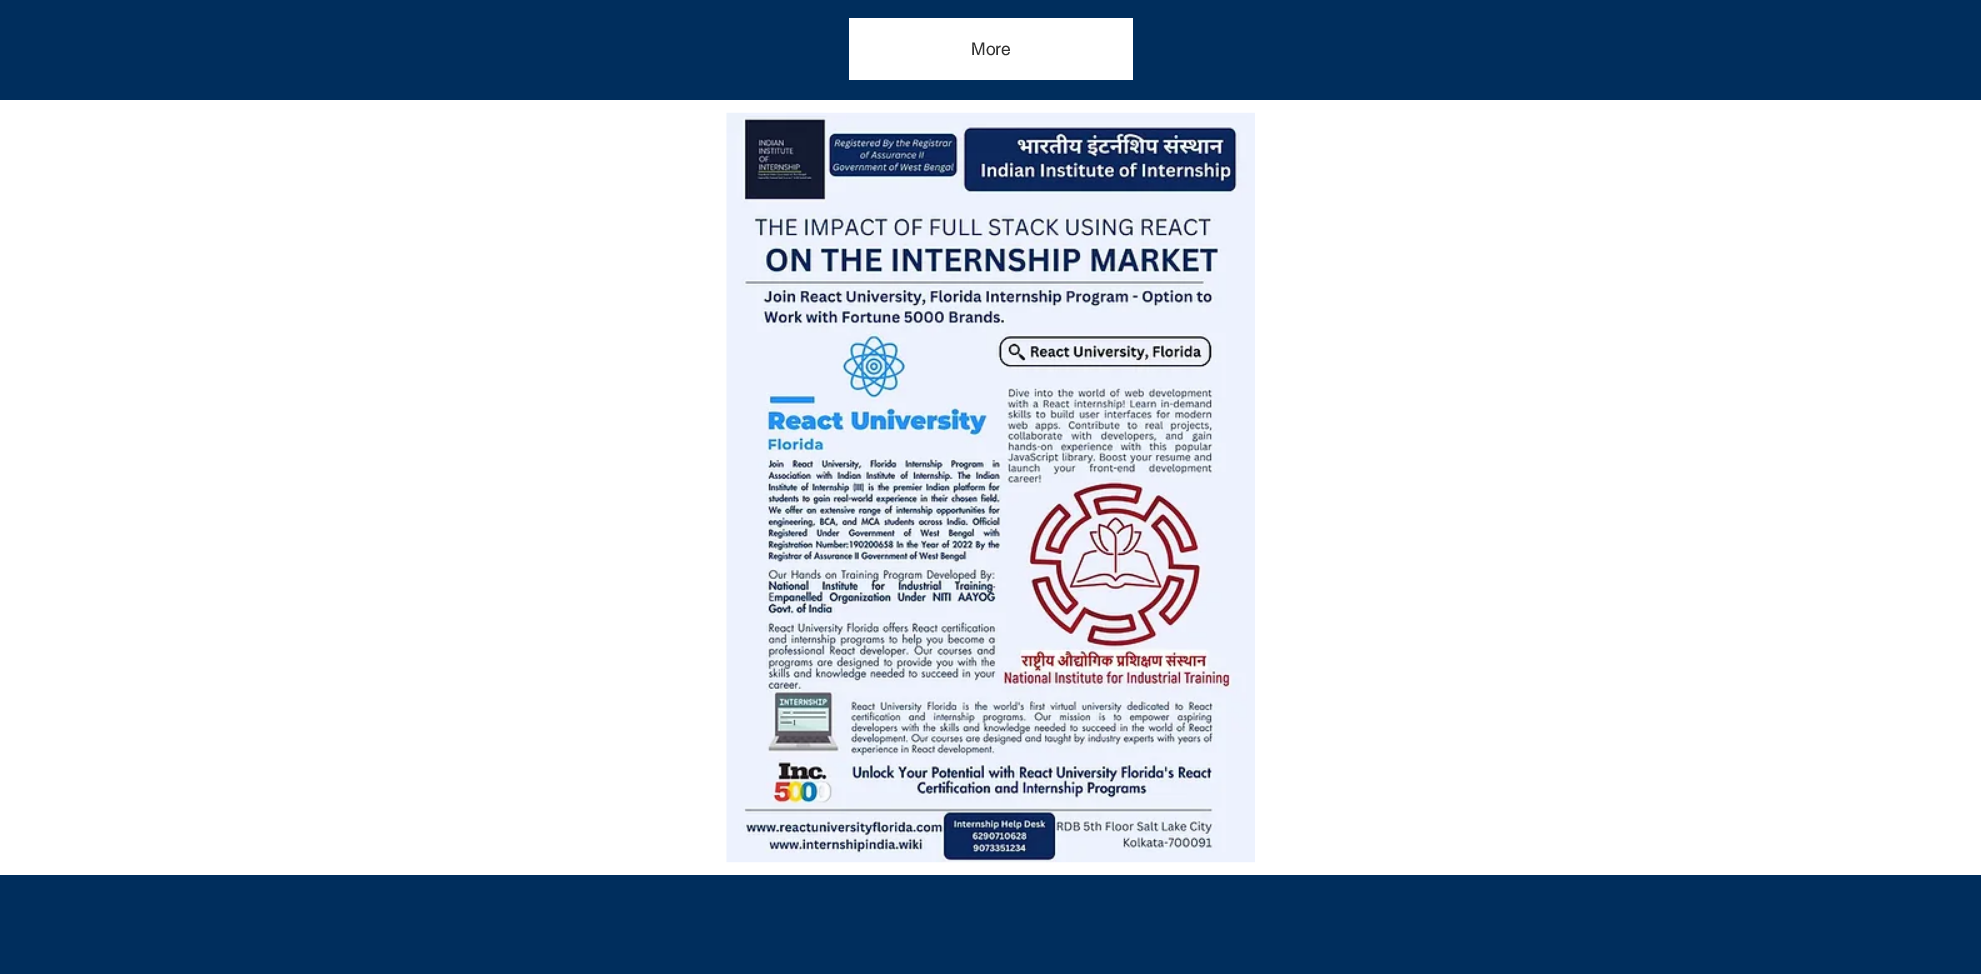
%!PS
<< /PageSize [1981 974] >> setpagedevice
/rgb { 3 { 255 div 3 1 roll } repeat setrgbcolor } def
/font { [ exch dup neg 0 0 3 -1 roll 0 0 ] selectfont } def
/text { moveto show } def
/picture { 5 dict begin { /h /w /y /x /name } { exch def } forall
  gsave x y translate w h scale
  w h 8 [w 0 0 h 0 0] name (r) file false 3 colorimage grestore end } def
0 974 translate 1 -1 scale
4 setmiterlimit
255 255 255 rgb
0 0 1981 974 rectfill
0 46 93 rgb
0 0 1981 100 rectfill
255 255 255 rgb
849 18 284 62 rectfill
(img_01.rgb) 726 112 529 751 picture
0 46 93 rgb
0 875 1981 99 rectfill
/helvetica-Regular 17.5 font
50 50 50 rgb
(More) 971 55 text
showpage
